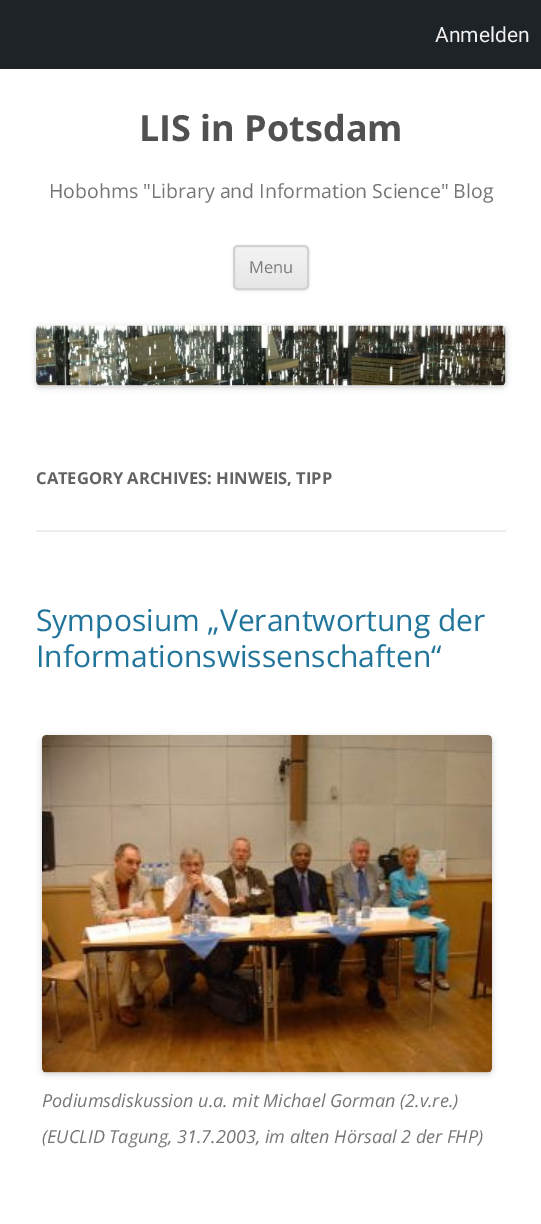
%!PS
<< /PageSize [541 1224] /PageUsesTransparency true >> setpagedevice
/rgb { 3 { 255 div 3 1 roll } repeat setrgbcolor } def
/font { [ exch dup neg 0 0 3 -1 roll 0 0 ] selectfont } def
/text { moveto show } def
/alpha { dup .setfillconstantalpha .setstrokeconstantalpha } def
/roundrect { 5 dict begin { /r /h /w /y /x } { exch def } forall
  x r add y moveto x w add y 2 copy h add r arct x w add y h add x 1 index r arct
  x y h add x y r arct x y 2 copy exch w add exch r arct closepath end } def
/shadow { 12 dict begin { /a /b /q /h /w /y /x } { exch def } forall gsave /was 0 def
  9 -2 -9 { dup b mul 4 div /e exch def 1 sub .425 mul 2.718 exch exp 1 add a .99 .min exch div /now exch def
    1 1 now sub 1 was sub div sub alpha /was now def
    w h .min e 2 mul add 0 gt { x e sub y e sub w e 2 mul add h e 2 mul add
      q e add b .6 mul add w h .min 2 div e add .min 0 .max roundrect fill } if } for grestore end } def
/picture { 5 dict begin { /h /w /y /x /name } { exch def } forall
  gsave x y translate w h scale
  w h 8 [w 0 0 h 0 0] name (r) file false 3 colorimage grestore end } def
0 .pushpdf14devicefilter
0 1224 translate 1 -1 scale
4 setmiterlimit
255 255 255 rgb
0 0 541 1224 rectfill
29 35 39 rgb
0 0 541 69 rectfill
64 64 64 rgb
233 246 76 45 5 1.5 0.1 shadow
gsave
233 245 76 45 5 roundrect clip newpath
gsave 233 246 moveto 76 0 rlineto 0 42 rlineto -76 0 rlineto closepath clip newpath
<< /ShadingType 2 /ColorSpace /DeviceRGB /Coords [271 246 271 288] /Extend [true true] /Function << /FunctionType 2 /Domain [0 1] /C0 [0.957 0.957 0.957] /C1 [0.902 0.902 0.902] /N 1 >> >> shfill grestore
grestore
210 210 210 rgb
2 setlinewidth
234 246 74 43 4 roundrect stroke
0 0 0 rgb
36 327 470 60 5 3 0.2 shadow
(img_01.rgb) 36 325 470 61 picture
237 237 237 rgb
36 530 470 2 rectfill
0 0 0 rgb
42 737 450 337 5 3 0.2 shadow
(img_02.rgb) 42 735 450 338 picture
/Roboto-Regular 21 font
240 240 241 rgb
(Anmelden) 435 42 text
/OpenSans-Bold 36 font
81 81 81 rgb
(LIS in Potsdam) 139 141 text
/OpenSans-Regular 19.5 font
117 117 117 rgb
(Hobohms "Library and Information Science" Blog) 49 198 text
/OpenSans-Regular 16.5 font
124 124 124 rgb
(Menu) 249 273 text
/OpenSans-Bold 16.5 font
99 99 99 rgb
(CATEGORY ARCHIVES: HINWEIS, TIPP) 36 484 text
/OpenSans-Regular 30 font
33 117 155 rgb
(Symposium „Verantwortung der) 36 631 text
(Informationswissenschaften“) 36 667 text
/OpenSans-Italic 18 font
117 117 117 rgb
(Podiumsdiskussion u.a. mit Michael Gorman \(2.v.re.\)) 42 1107 text
(\(EUCLID Tagung, 31.7.2003, im alten Hörsaal 2 der FHP\)) 42 1143 text
.poppdf14devicefilter showpage
